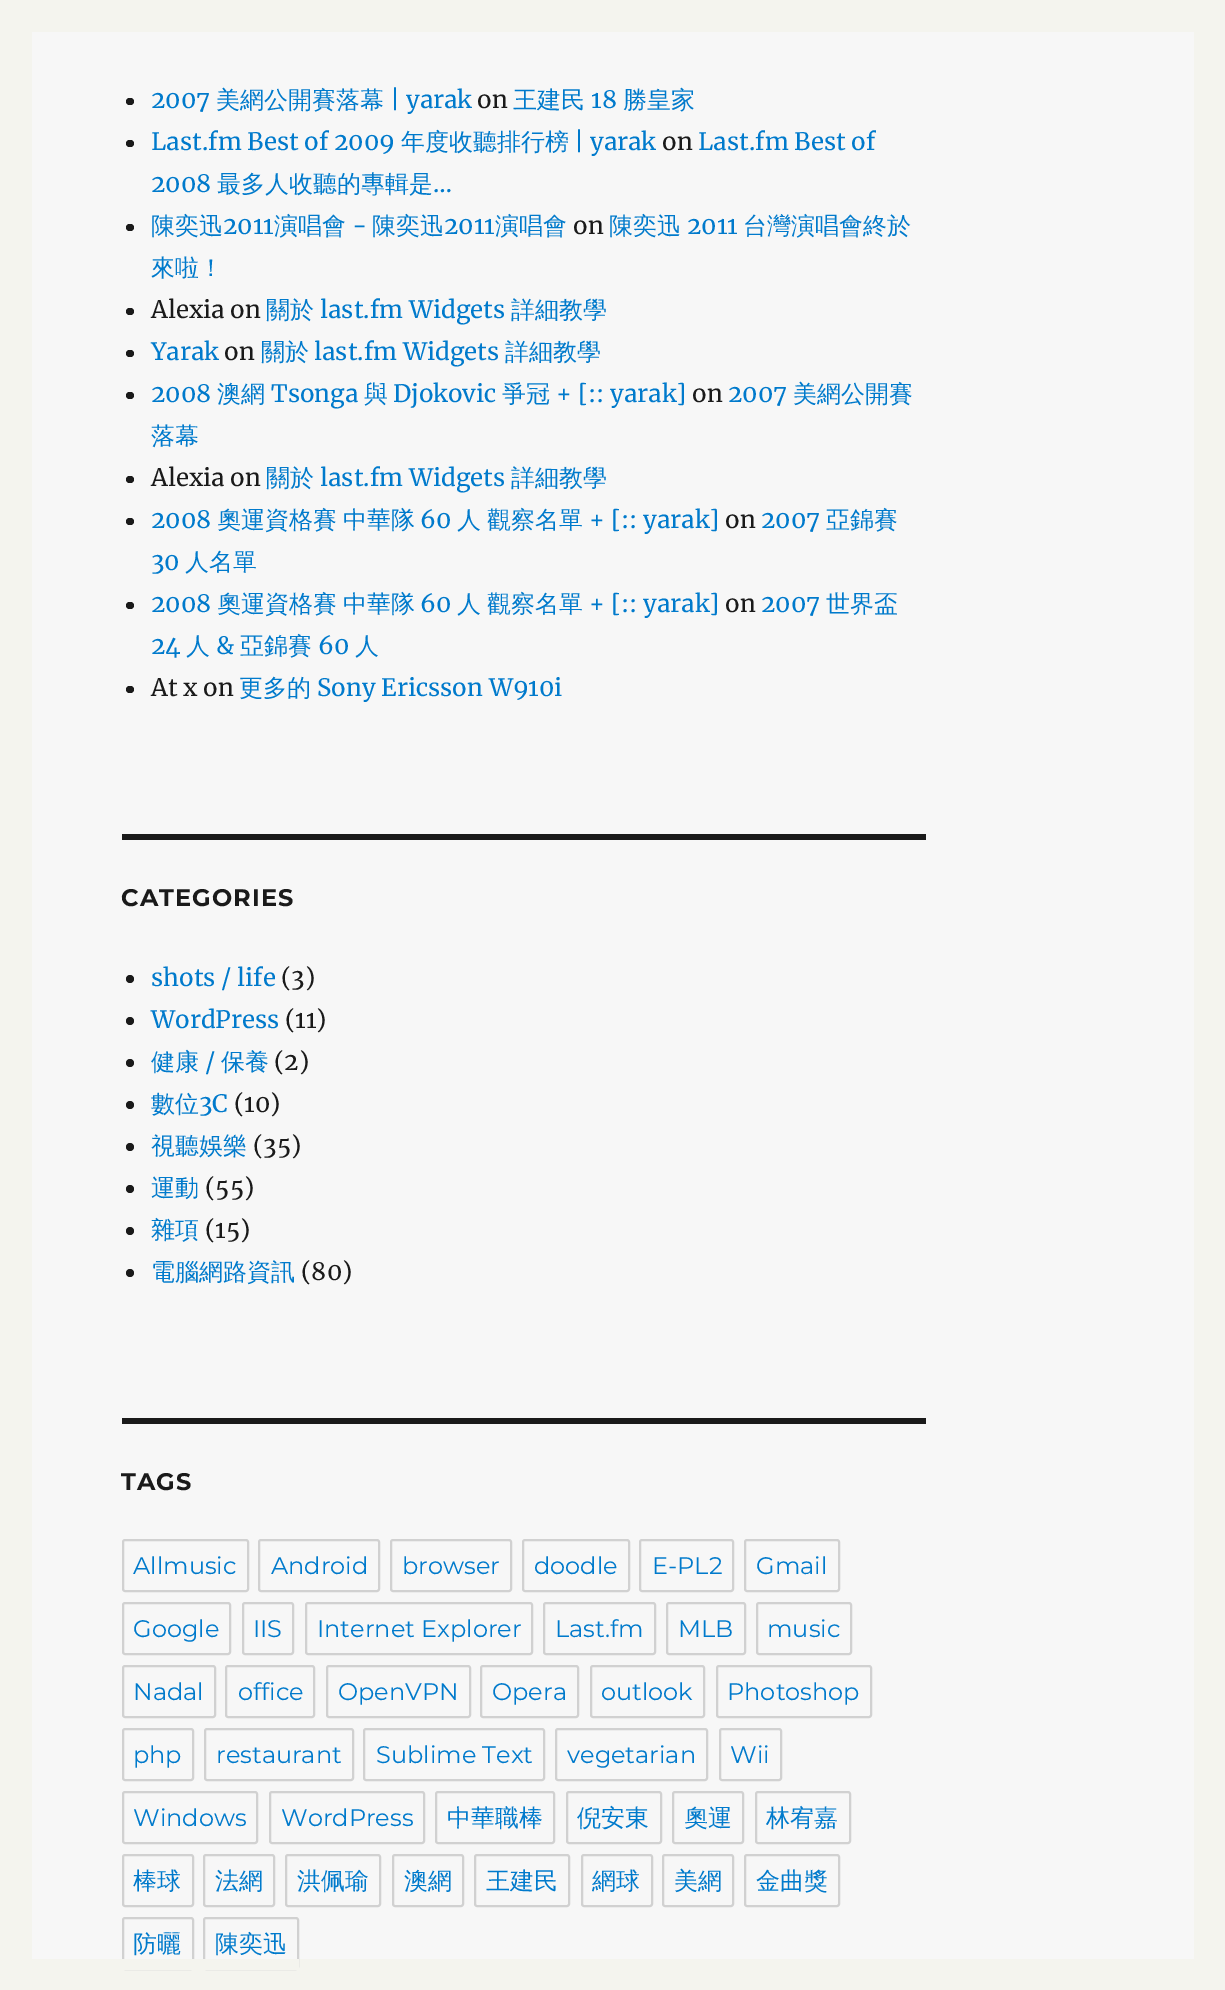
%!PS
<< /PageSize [1225 1990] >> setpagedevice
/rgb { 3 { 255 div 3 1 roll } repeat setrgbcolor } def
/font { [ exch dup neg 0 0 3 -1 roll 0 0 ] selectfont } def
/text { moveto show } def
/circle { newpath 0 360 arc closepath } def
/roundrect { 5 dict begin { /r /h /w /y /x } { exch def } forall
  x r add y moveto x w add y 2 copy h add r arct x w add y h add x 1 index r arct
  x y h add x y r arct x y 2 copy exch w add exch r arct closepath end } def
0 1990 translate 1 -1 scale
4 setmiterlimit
244 244 238 rgb
0 0 1225 1990 rectfill
247 247 247 rgb
32 32 1162 1927 rectfill
26 26 26 rgb
126 98 8 7 3.5 roundrect fill
126 140 8 7 3.5 roundrect fill
126 224 8 7 3.5 roundrect fill
126 308 8 7 3.5 roundrect fill
126 350 8 7 3.5 roundrect fill
126 392 8 7 3.5 roundrect fill
126 476 8 7 3.5 roundrect fill
126 518 8 7 3.5 roundrect fill
126 602 8 7 3.5 roundrect fill
126 686 8 7 3.5 roundrect fill
122 834 804 6 rectfill
130 979 4 circle fill
130 1021 4 circle fill
130 1063 4 circle fill
130 1105 4 circle fill
130 1147 4 circle fill
130 1189 4 circle fill
130 1231 4 circle fill
130 1273 4 circle fill
122 1418 804 6 rectfill
209 209 209 rgb
2 setlinewidth
123 1540 125 51 2 roundrect stroke
259 1540 120 51 2 roundrect stroke
391 1540 120 51 2 roundrect stroke
523 1540 106 51 2 roundrect stroke
640 1540 93 51 2 roundrect stroke
745 1540 94 51 2 roundrect stroke
123 1603 107 51 2 roundrect stroke
243 1603 50 51 2 roundrect stroke
306 1603 226 51 2 roundrect stroke
544 1603 111 51 2 roundrect stroke
667 1603 78 51 2 roundrect stroke
757 1603 94 51 2 roundrect stroke
123 1666 92 51 2 roundrect stroke
226 1666 88 51 2 roundrect stroke
327 1666 143 51 2 roundrect stroke
481 1666 97 51 2 roundrect stroke
591 1666 113 51 2 roundrect stroke
717 1666 154 51 2 roundrect stroke
123 1729 70 51 2 roundrect stroke
205 1729 148 51 2 roundrect stroke
364 1729 180 51 2 roundrect stroke
556 1729 151 51 2 roundrect stroke
720 1729 61 51 2 roundrect stroke
123 1792 134 51 2 roundrect stroke
270 1792 154 51 2 roundrect stroke
436 1792 118 51 2 roundrect stroke
567 1792 94 51 2 roundrect stroke
673 1792 70 51 2 roundrect stroke
756 1792 94 51 2 roundrect stroke
123 1855 70 51 2 roundrect stroke
204 1855 70 51 2 roundrect stroke
286 1855 94 51 2 roundrect stroke
393 1855 70 51 2 roundrect stroke
475 1855 94 51 2 roundrect stroke
582 1855 70 51 2 roundrect stroke
663 1855 70 51 2 roundrect stroke
745 1855 94 51 2 roundrect stroke
123 1918 70 51 2 roundrect stroke
204 1918 94 51 2 roundrect stroke
244 244 238 rgb
122 1959 177 11 rectfill
/Merriweather-Regular 24 font
0 122 204 rgb
(2007) 151 108 text
/WenQuanYiZenHei-Medium 24 font
(美網公開賽落幕) 216 108 text
/Merriweather-Regular 24 font
(| yarak) 390 108 text
26 26 26 rgb
(on) 477 108 text
/WenQuanYiZenHei-Medium 24 font
0 122 204 rgb
(王建民) 513 108 text
/Merriweather-Regular 24 font
(18) 591 108 text
/WenQuanYiZenHei-Medium 24 font
(勝皇家) 623 108 text
/Merriweather-Regular 24 font
(Last.fm Best of 2009) 151 150 text
/WenQuanYiZenHei-Medium 24 font
(年度收聽排行榜) 401 150 text
/Merriweather-Regular 24 font
(| yarak) 574 150 text
26 26 26 rgb
(on) 662 150 text
0 122 204 rgb
(Last.fm Best of) 698 150 text
(2008) 151 192 text
/WenQuanYiZenHei-Medium 24 font
(最多人收聽的專輯是) 217 192 text
/Merriweather-Regular 24 font
(…) 433 192 text
/WenQuanYiZenHei-Medium 24 font
(陳奕迅) 151 234 text
/Merriweather-Regular 24 font
(2011) 223 234 text
/WenQuanYiZenHei-Medium 24 font
(演唱會) 274 234 text
/Merriweather-Regular 24 font
(-) 352 234 text
/WenQuanYiZenHei-Medium 24 font
(陳奕迅) 372 234 text
/Merriweather-Regular 24 font
(2011) 444 234 text
/WenQuanYiZenHei-Medium 24 font
(演唱會) 495 234 text
/Merriweather-Regular 24 font
26 26 26 rgb
(on) 573 234 text
/WenQuanYiZenHei-Medium 24 font
0 122 204 rgb
(陳奕迅) 609 234 text
/Merriweather-Regular 24 font
(2011) 687 234 text
/WenQuanYiZenHei-Medium 24 font
(台灣演唱會終於) 743 234 text
(來啦！) 151 276 text
/Merriweather-Regular 24 font
26 26 26 rgb
(Alexia on) 151 318 text
/WenQuanYiZenHei-Medium 24 font
0 122 204 rgb
(關於) 266 318 text
/Merriweather-Regular 24 font
(last.fm Widgets) 320 318 text
/WenQuanYiZenHei-Medium 24 font
(詳細教學) 511 318 text
/Merriweather-Regular 24 font
(Yarak) 151 360 text
26 26 26 rgb
(on) 224 360 text
/WenQuanYiZenHei-Medium 24 font
0 122 204 rgb
(關於) 261 360 text
/Merriweather-Regular 24 font
(last.fm Widgets) 314 360 text
/WenQuanYiZenHei-Medium 24 font
(詳細教學) 505 360 text
/Merriweather-Regular 24 font
(2008) 151 402 text
/WenQuanYiZenHei-Medium 24 font
(澳網) 217 402 text
/Merriweather-Regular 24 font
(Tsonga) 271 402 text
/WenQuanYiZenHei-Medium 24 font
(與) 364 402 text
/Merriweather-Regular 24 font
(Djokovic) 393 402 text
/WenQuanYiZenHei-Medium 24 font
(爭冠) 502 402 text
/Merriweather-Regular 24 font
(+ [:: yarak]) 556 402 text
26 26 26 rgb
(on) 692 402 text
0 122 204 rgb
(2007) 728 402 text
/WenQuanYiZenHei-Medium 24 font
(美網公開賽) 793 402 text
(落幕) 151 444 text
/Merriweather-Regular 24 font
26 26 26 rgb
(Alexia on) 151 486 text
/WenQuanYiZenHei-Medium 24 font
0 122 204 rgb
(關於) 266 486 text
/Merriweather-Regular 24 font
(last.fm Widgets) 320 486 text
/WenQuanYiZenHei-Medium 24 font
(詳細教學) 511 486 text
/Merriweather-Regular 24 font
(2008) 151 528 text
/WenQuanYiZenHei-Medium 24 font
(奧運資格賽) 217 528 text
(中華隊) 343 528 text
/Merriweather-Regular 24 font
(60) 420 528 text
/WenQuanYiZenHei-Medium 24 font
(人) 457 528 text
(觀察名單) 487 528 text
/Merriweather-Regular 24 font
(+ [:: yarak]) 589 528 text
26 26 26 rgb
(on) 725 528 text
0 122 204 rgb
(2007) 761 528 text
/WenQuanYiZenHei-Medium 24 font
(亞錦賽) 826 528 text
/Merriweather-Regular 24 font
(30) 151 570 text
/WenQuanYiZenHei-Medium 24 font
(人名單) 185 570 text
/Merriweather-Regular 24 font
(2008) 151 612 text
/WenQuanYiZenHei-Medium 24 font
(奧運資格賽) 217 612 text
(中華隊) 343 612 text
/Merriweather-Regular 24 font
(60) 420 612 text
/WenQuanYiZenHei-Medium 24 font
(人) 457 612 text
(觀察名單) 487 612 text
/Merriweather-Regular 24 font
(+ [:: yarak]) 589 612 text
26 26 26 rgb
(on) 725 612 text
0 122 204 rgb
(2007) 761 612 text
/WenQuanYiZenHei-Medium 24 font
(世界盃) 826 612 text
/Merriweather-Regular 24 font
(24) 151 654 text
/WenQuanYiZenHei-Medium 24 font
(人) 186 654 text
/Merriweather-Regular 24 font
(&) 216 654 text
/WenQuanYiZenHei-Medium 24 font
(亞錦賽) 240 654 text
/Merriweather-Regular 24 font
(60) 318 654 text
/WenQuanYiZenHei-Medium 24 font
(人) 355 654 text
/Merriweather-Regular 24 font
26 26 26 rgb
(At x on) 151 696 text
/WenQuanYiZenHei-Medium 24 font
0 122 204 rgb
(更多的) 239 696 text
/Merriweather-Regular 24 font
(Sony Ericsson W910i) 317 696 text
/Montserrat-Thin 24 font
26 26 26 rgb
121 906 moveto 1.1 0 (CATEGORIES) ashow
/Merriweather-Regular 24 font
0 122 204 rgb
(shots / life) 151 986 text
26 26 26 rgb
(\(3\)) 281 986 text
0 122 204 rgb
(WordPress) 151 1028 text
26 26 26 rgb
(\(11\)) 285 1028 text
/WenQuanYiZenHei-Medium 24 font
0 122 204 rgb
(健康) 151 1070 text
/Merriweather-Regular 24 font
(/) 205 1070 text
/WenQuanYiZenHei-Medium 24 font
(保養) 221 1070 text
/Merriweather-Regular 24 font
26 26 26 rgb
(\(2\)) 274 1070 text
/WenQuanYiZenHei-Medium 24 font
0 122 204 rgb
(數位) 151 1112 text
/Merriweather-Regular 24 font
(3C) 199 1112 text
26 26 26 rgb
(\(10\)) 234 1112 text
/WenQuanYiZenHei-Medium 24 font
0 122 204 rgb
(視聽娛樂) 151 1154 text
/Merriweather-Regular 24 font
26 26 26 rgb
(\(35\)) 253 1154 text
/WenQuanYiZenHei-Medium 24 font
0 122 204 rgb
(運動) 151 1196 text
/Merriweather-Regular 24 font
26 26 26 rgb
(\(55\)) 205 1196 text
/WenQuanYiZenHei-Medium 24 font
0 122 204 rgb
(雜項) 151 1238 text
/Merriweather-Regular 24 font
26 26 26 rgb
(\(15\)) 205 1238 text
/WenQuanYiZenHei-Medium 24 font
0 122 204 rgb
(電腦網路資訊) 151 1280 text
/Merriweather-Regular 24 font
26 26 26 rgb
(\(80\)) 301 1280 text
/Montserrat-Thin 24 font
121 1490 moveto 1.1 0 (TAGS) ashow
/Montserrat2-Thin 24 font
0 122 204 rgb
(Allmusic) 133 1574 text
(Android) 271 1574 text
(browser) 402 1574 text
(doodle) 534 1574 text
(E-PL2) 652 1574 text
(Gmail) 756 1574 text
(Google) 133 1637 text
(IIS) 253 1637 text
(Internet Explorer) 317 1637 text
(Last.fm) 555 1637 text
(MLB) 678 1637 text
(music) 767 1637 text
(Nadal) 133 1700 text
(office) 238 1700 text
(OpenVPN) 338 1700 text
(Opera) 492 1700 text
(outlook) 601 1700 text
(Photoshop) 727 1700 text
(php) 133 1763 text
(restaurant) 216 1763 text
(Sublime Text) 376 1763 text
(vegetarian) 567 1763 text
(Wii) 730 1763 text
(Windows) 133 1826 text
(WordPress) 281 1826 text
/WenQuanYiZenHei-Medium 24 font
(中華職棒) 447 1826 text
(倪安東) 577 1826 text
(奧運) 684 1826 text
(林宥嘉) 766 1826 text
(棒球) 133 1889 text
(法網) 215 1889 text
(洪佩瑜) 297 1889 text
(澳網) 404 1889 text
(王建民) 486 1889 text
(網球) 592 1889 text
(美網) 674 1889 text
(金曲獎) 756 1889 text
(防曬) 133 1952 text
(陳奕迅) 215 1952 text
showpage
